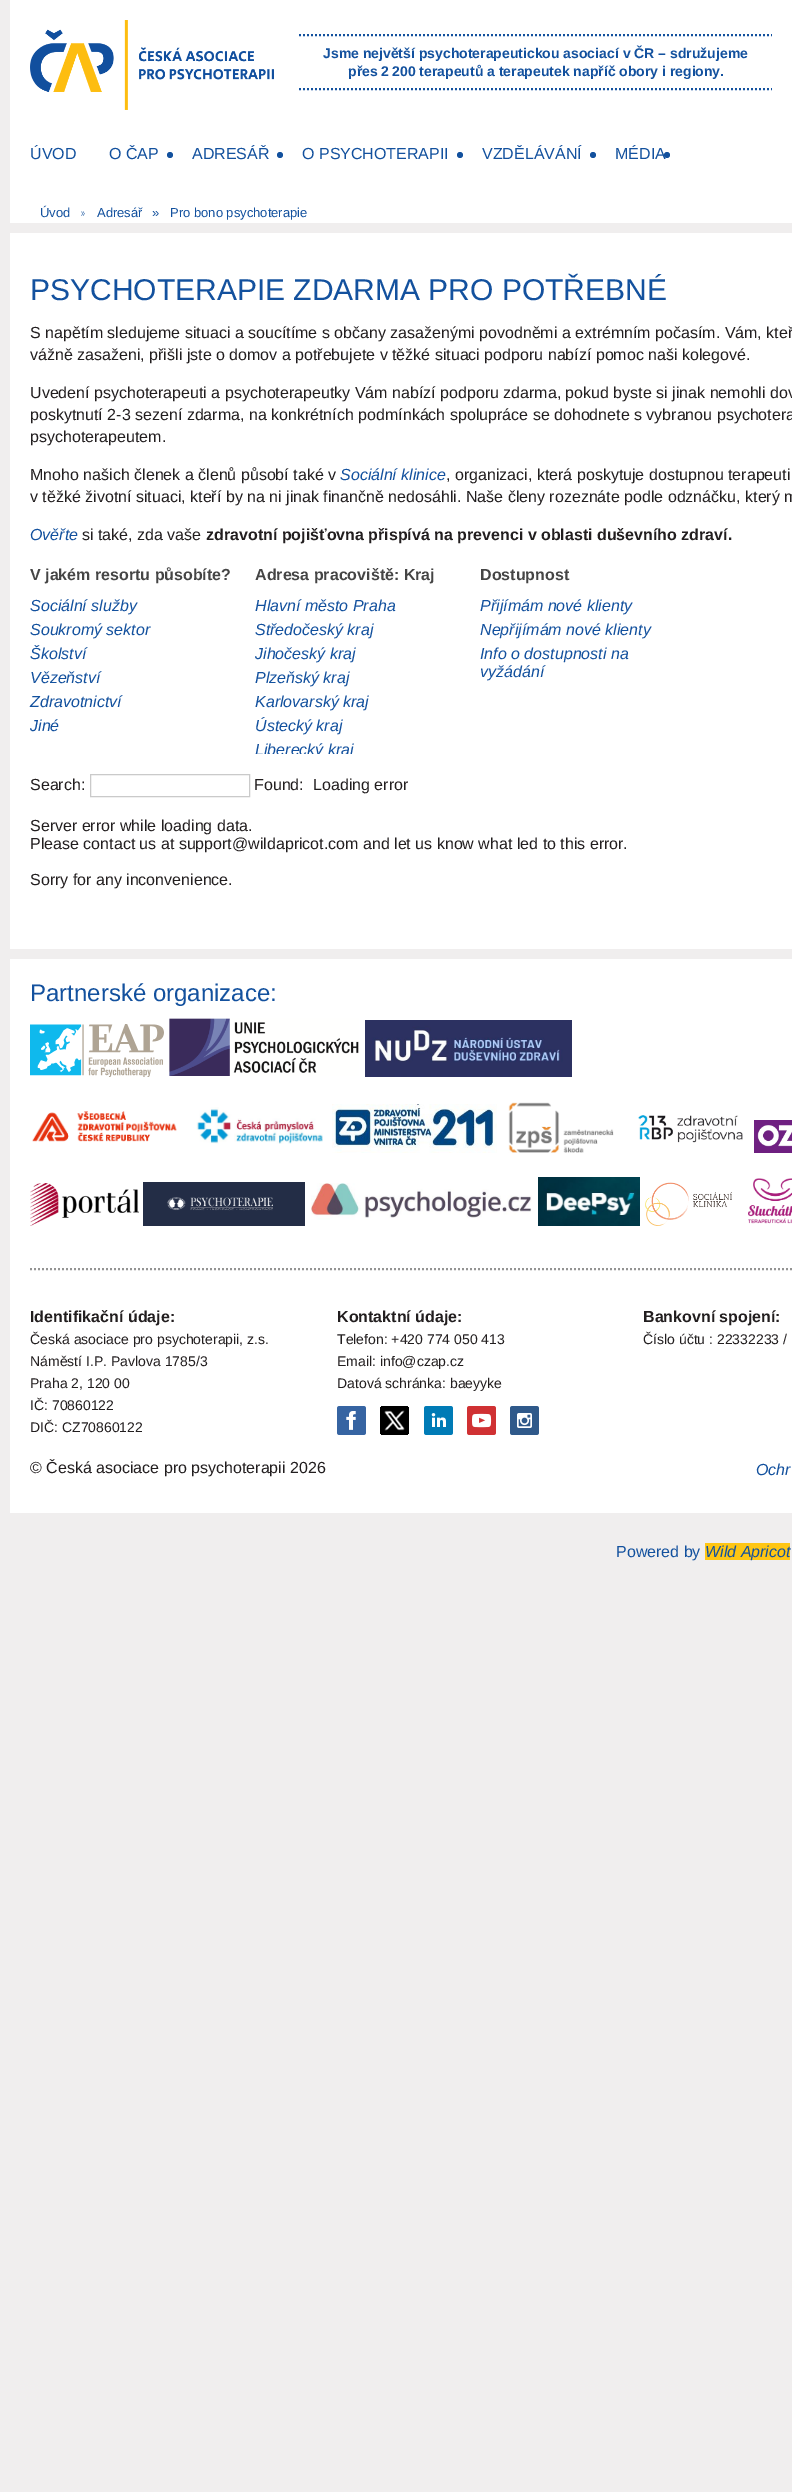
%!PS
<< /PageSize [792 2492] >> setpagedevice
/rgb { 3 { 255 div 3 1 roll } repeat setrgbcolor } def
/font { [ exch dup neg 0 0 3 -1 roll 0 0 ] selectfont } def
/text { moveto show } def
/circle { newpath 0 360 arc closepath } def
/picture { 5 dict begin { /h /w /y /x /name } { exch def } forall
  gsave x y translate w h scale
  w h 8 [w 0 0 h 0 0] name (r) file false 3 colorimage grestore end } def
0 2492 translate 1 -1 scale
4 setmiterlimit
240 238 238 rgb
0 0 792 2492 rectfill
255 255 255 rgb
10 0 782 223 rectfill
(img_01.rgb) 30 20 244 90 picture
19 81 158 rgb
2 setlinewidth
[2 2] 0 setdash
299 35 moveto 473 0 rlineto stroke
299 89 moveto 473 0 rlineto stroke
170 155 3 circle fill
280 155 3 circle fill
460 155 3 circle fill
593 155 3 circle fill
667 155 3 circle fill
255 255 255 rgb
10 233 782 716 rectfill
202 202 202 rgb
1 setlinewidth
[] 0 setdash
90.5 774.5 159 22 rectstroke
255 255 255 rgb
10 959 782 554 rectfill
(img_02.rgb) 30 1024 134 53 picture
(img_03.rgb) 169 1018 190 58 picture
(img_04.rgb) 365 1020 207 57 picture
(img_05.rgb) 32 1111 145 31 picture
(img_06.rgb) 196 1107 127 37 picture
(img_07.rgb) 332 1104 165 49 picture
(img_08.rgb) 508 1102 106 51 picture
(img_09.rgb) 638 1115 105 28 picture
(img_10.rgb) 754 1120 38 33 picture
(img_11.rgb) 30 1183 109 43 picture
(img_12.rgb) 143 1182 162 44 picture
(img_13.rgb) 311 1183 221 37 picture
(img_14.rgb) 538 1177 102 49 picture
(img_15.rgb) 645 1182 87 44 picture
(img_16.rgb) 748 1178 44 46 picture
148 148 147 rgb
2 setlinewidth
[2 2] 0 setdash
30 1269 moveto 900 0 rlineto stroke
(img_17.rgb) 337 1406 29 29 picture
(img_18.rgb) 380 1406 29 29 picture
(img_19.rgb) 424 1406 29 29 picture
(img_20.rgb) 467 1406 29 29 picture
(img_21.rgb) 510 1406 29 29 picture
255 198 19 rgb
705 1543 85 17 rectfill
/LiberationSans-Bold 14 font
19 81 158 rgb
(Jsme největší psychoterapeutickou asociací v ČR – sdružujeme) 323 58 text
(přes 2 200 terapeutů a terapeutek napříč obory i regiony.) 348 76 text
/LiberationSans-Regular 16 font
(ÚVOD) 30 159 text
(O ČAP) 109 159 text
(ADRESÁŘ) 192 159 text
(O PSYCHOTERAPII) 302 159 text
(VZDĚLÁVÁNÍ) 482 159 text
(MÉDIA) 615 159 text
/LiberationSans-Regular 13 font
(Úvod) 40 217 text
/Lato-Light 13 font
(») 80 217 text
/LiberationSans-Regular 13 font
(Adresář) 97 217 text
(») 152 217 text
(Pro bono psychoterapie) 170 217 text
/LiberationSans-Regular 30 font
(PSYCHOTERAPIE ZDARMA PRO POTŘEBNÉ) 30 300 text
/LiberationSans-Regular 16 font
34 30 31 rgb
(S napětím sledujeme situaci a soucítíme s občany zasaženými povodněmi a extrémním počasím. Vám, kteř) 30 338 text
(vážně zasaženi, přišli jste o domov a potřebujete v těžké situaci podporu nabízí pomoc naši kolegové.) 30 360 text
(Uvedení psychoterapeuti a psychoterapeutky Vám nabízí podporu zdarma, pokud byste si jinak nemohli dov) 30 398 text
(poskytnutí 2-3 sezení zdarma, na konkrétních podmínkách spolupráce se dohodnete s vybranou psychotera) 30 420 text
(psychoterapeutem.) 30 442 text
(Mnoho našich členek a členů působí také v) 30 480 text
/LiberationSans-Italic 16 font
19 81 158 rgb
(Sociální klinice) 340 480 text
/LiberationSans-Regular 16 font
34 30 31 rgb
(, organizaci, která poskytuje dostupnou terapeuti) 446 480 text
(v těžké životní situaci, kteří by na ni jinak finančně nedosáhli. Naše členy rozeznáte podle odznáčku, který m) 30 502 text
/LiberationSans-Italic 16 font
19 81 158 rgb
(Ověřte) 30 540 text
/LiberationSans-Regular 16 font
34 30 31 rgb
(si také, zda vaše) 82 540 text
/LiberationSans-Bold 16 font
(zdravotní pojišťovna přispívá na prevenci v oblasti duševního zdraví.) 206 540 text
69 69 69 rgb
(V jakém resortu působíte?) 30 580 text
(Adresa pracoviště: Kraj) 255 580 text
(Dostupnost) 480 580 text
/LiberationSans-Italic 16 font
19 81 158 rgb
(Sociální služby) 30 611 text
(Soukromý sektor) 30 635 text
(Školství) 30 659 text
(Vězeňství) 30 683 text
(Zdravotnictví) 30 707 text
(Jiné) 30 731 text
(Hlavní město Praha) 255 611 text
(Středočeský kraj) 255 635 text
(Jihočeský kraj) 255 659 text
(Plzeňský kraj) 255 683 text
(Karlovarský kraj) 255 707 text
(Ústecký kraj) 255 731 text
gsave
255 594 207 160 rectclip
(Liberecký kraj) 255 755 text
grestore
(Přijímám nové klienty) 480 611 text
(Nepřijímám nové klienty) 480 635 text
(Info o dostupnosti na) 480 659 text
(vyžádání) 480 677 text
/LiberationSans-Regular 16 font
34 30 31 rgb
(Search:) 30 790 text
(Found:) 254 790 text
(Loading error) 313 790 text
(Server error while loading data.) 30 831 text
(Please contact us at support@wildapricot.com and let us know what led to this error.) 30 849 text
(Sorry for any inconvenience.) 30 885 text
/LiberationSans-Regular 24 font
19 81 158 rgb
(Partnerské organizace:) 30 1001 text
/LiberationSans-Bold 16 font
34 30 31 rgb
(Identifikační údaje:) 30 1322 text
/LiberationSans-Regular 14 font
(Česká asociace pro psychoterapii, z.s.) 30 1344 text
(Náměstí I.P. Pavlova 1785/3) 30 1366 text
(Praha 2, 120 00) 30 1388 text
(IČ: 70860122) 30 1410 text
(DIČ: CZ70860122) 30 1432 text
/LiberationSans-Bold 16 font
(Kontaktní údaje:) 337 1322 text
/LiberationSans-Regular 14 font
(Telefon: +420 774 050 413) 337 1344 text
(Email: info@czap.cz) 337 1366 text
(Datová schránka: baeyyke) 337 1388 text
/LiberationSans-Bold 16 font
(Bankovní spojení:) 643 1322 text
/LiberationSans-Regular 14 font
(Číslo účtu : 22332233 /) 643 1344 text
/LiberationSans-Regular 16 font
(© Česká asociace pro psychoterapii 2026) 30 1473 text
/LiberationSans-Italic 16 font
19 81 158 rgb
(Ochr) 756 1475 text
/LiberationSans-Regular 16 font
(Powered by) 616 1557 text
/LiberationSans-Italic 16 font
(Wild Apricot) 705 1557 text
showpage
